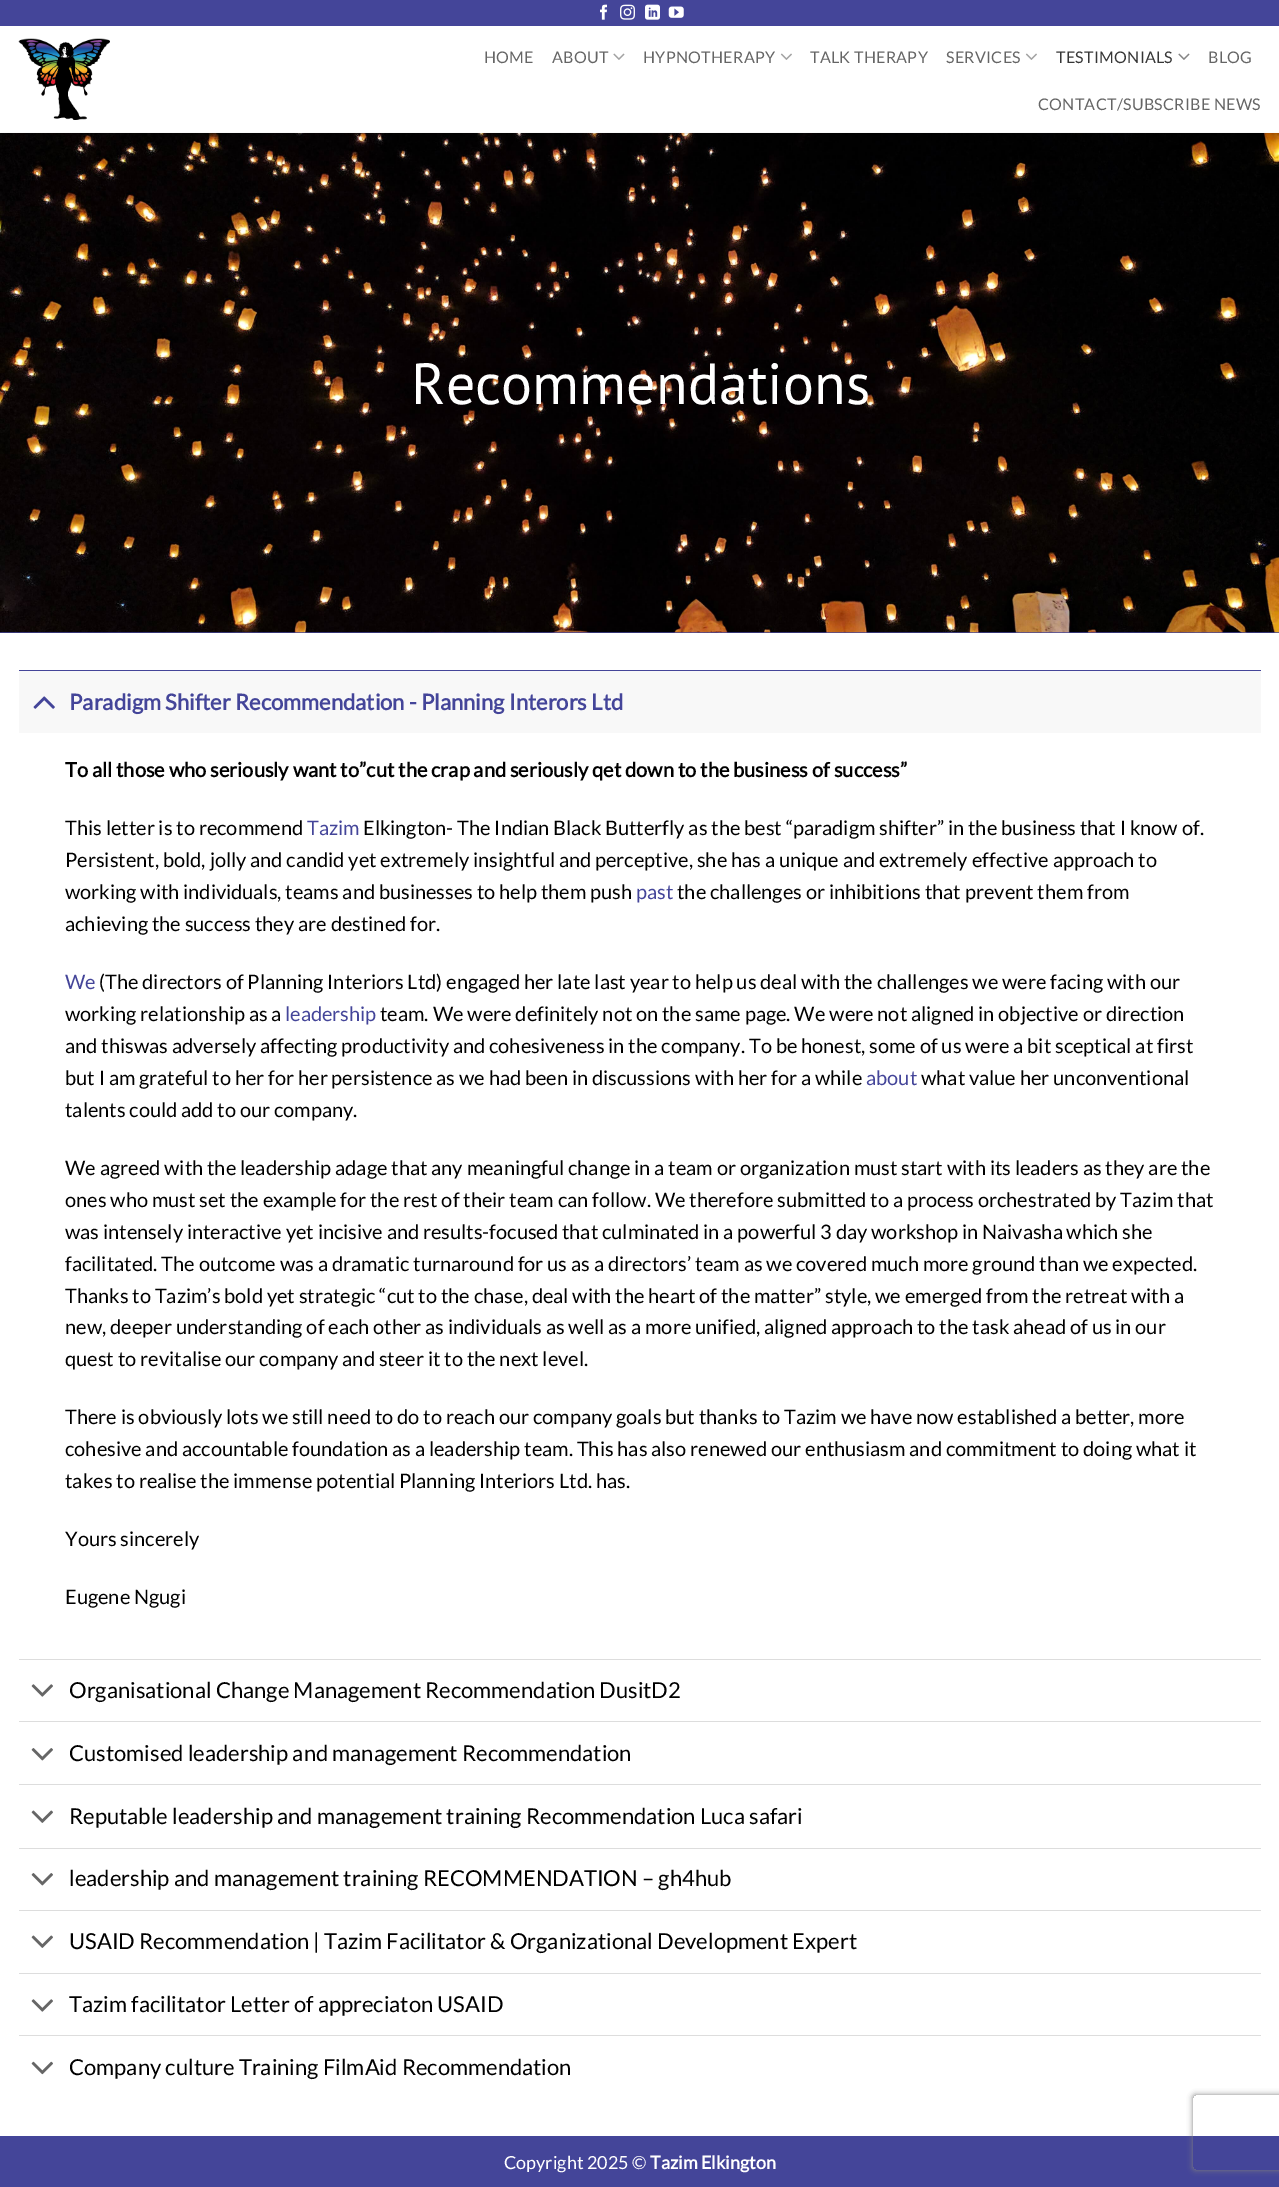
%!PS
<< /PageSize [1279 2187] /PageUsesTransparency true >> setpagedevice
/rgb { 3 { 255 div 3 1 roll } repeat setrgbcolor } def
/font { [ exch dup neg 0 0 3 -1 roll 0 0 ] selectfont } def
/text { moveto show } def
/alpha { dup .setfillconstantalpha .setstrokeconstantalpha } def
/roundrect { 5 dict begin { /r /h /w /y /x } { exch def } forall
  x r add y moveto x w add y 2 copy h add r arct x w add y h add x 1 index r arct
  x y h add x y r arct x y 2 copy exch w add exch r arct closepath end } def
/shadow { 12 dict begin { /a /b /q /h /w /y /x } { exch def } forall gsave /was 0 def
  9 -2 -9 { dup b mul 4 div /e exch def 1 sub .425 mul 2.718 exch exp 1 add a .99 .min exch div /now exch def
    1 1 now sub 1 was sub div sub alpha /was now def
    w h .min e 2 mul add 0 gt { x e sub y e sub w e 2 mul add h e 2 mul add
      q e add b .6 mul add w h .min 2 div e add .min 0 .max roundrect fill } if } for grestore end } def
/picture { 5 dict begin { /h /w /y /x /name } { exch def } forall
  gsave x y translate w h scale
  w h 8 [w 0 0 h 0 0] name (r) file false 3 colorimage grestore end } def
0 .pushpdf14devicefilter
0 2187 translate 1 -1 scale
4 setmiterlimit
255 255 255 rgb
0 0 1279 2187 rectfill
68 69 153 rgb
0 0 1279 26 rectfill
(img_01.rgb) 600 4 7 16 picture
(img_02.rgb) 620 4 15 16 picture
(img_03.rgb) 645 4 15 16 picture
(img_04.rgb) 668 6 16 12 picture
(img_05.rgb) 18 38 92 82 picture
(img_06.rgb) 613 53 12 7 picture
(img_07.rgb) 780 53 12 7 picture
(img_07.rgb) 1025 53 12 7 picture
(img_08.rgb) 1178 53 12 7 picture
0 632 1279 1 rectfill
(img_09.rgb) 0 132 1279 501 picture
0.1 alpha
0 0 0 rgb
209 133 483 1 rectfill
0.9 alpha
255 255 255 rgb
0 132 1279 1 rectfill
1 alpha
248 248 248 rgb
19 671 1242 62 rectfill
68 69 153 rgb
19 670 1242 1 rectfill
(img_10.rgb) 33 696 22 13 picture
221 221 221 rgb
19 1659 1242 1 rectfill
(img_11.rgb) 31 1684 22 13 picture
19 1721 1242 1 rectfill
(img_12.rgb) 31 1748 22 13 picture
19 1784 1242 1 rectfill
(img_13.rgb) 31 1810 22 13 picture
19 1848 1242 1 rectfill
(img_12.rgb) 31 1873 22 13 picture
19 1910 1242 1 rectfill
(img_13.rgb) 31 1935 22 13 picture
19 1973 1242 1 rectfill
(img_11.rgb) 31 1999 22 13 picture
19 2035 1242 1 rectfill
(img_14.rgb) 31 2061 22 14 picture
68 69 153 rgb
0 2136 1279 51 rectfill
gsave
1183 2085 moveto 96 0 rlineto 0 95 rlineto -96 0 rlineto closepath 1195.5 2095 moveto 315 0 rlineto 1.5 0 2.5 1 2.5 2.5 rcurveto 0 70 rlineto 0 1.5 -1 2.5 -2.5 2.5 rcurveto -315 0 rlineto -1.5 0 -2.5 -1 -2.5 -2.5 rcurveto 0 -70 rlineto 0 -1.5 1 -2.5 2.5 -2.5 rcurveto closepath eoclip newpath
128 128 128 rgb
1193 2095 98 75 2.5 3 1 shadow
grestore
/Lato-Regular 16 font
101 101 101 rgb
484 63 moveto 0.3 0 (HOME) ashow
552 63 moveto 0.3 0 (ABOUT) ashow
643 63 moveto 0.3 0 (HYPNOTHERAPY) ashow
810 63 moveto 0.3 0 (TALK THERAPY) ashow
946 63 moveto 0.3 0 (SERVICES) ashow
54 54 54 rgb
1056 63 moveto 0.3 0 (TESTIMONIALS) ashow
101 101 101 rgb
1208 63 moveto 0.3 0 (BLOG) ashow
1038 110 moveto 0.3 0 (CONTACT/SUBSCRIBE NEWS) ashow
/PTSans-Regular 58 font
255 255 255 rgb
(Recommendations) 411 404 text
/Lato-Bold 22 font
68 69 153 rgb
(Paradigm Shifter Recommendation - Planning Interors Ltd) 69 710 text
/Lato-Bold 20 font
0 0 0 rgb
(To all those who seriously want to”cut the crap and seriously qet down to the business of success”) 65 777 text
/Lato-Regular 20 font
(This letter is to recommend) 65 835 text
68 69 153 rgb
(Tazim) 307 835 text
0 0 0 rgb
(Elkington- The Indian Black Butterfly as the best “paradigm shifter” in the business that I know of.) 363 835 text
(Persistent, bold, jolly and candid yet extremely insightful and perceptive, she has a unique and extremely effective approach to) 65 867 text
(working with individuals, teams and businesses to help them push) 65 899 text
68 69 153 rgb
(past) 636 899 text
0 0 0 rgb
(the challenges or inhibitions that prevent them from) 677 899 text
(achieving the success they are destined for.) 65 931 text
68 69 153 rgb
(We) 65 989 text
0 0 0 rgb
(\(The directors of Planning Interiors Ltd\) engaged her late last year to help us deal with the challenges we were facing with our) 99 989 text
(working relationship as a) 65 1021 text
68 69 153 rgb
(leadership) 285 1021 text
0 0 0 rgb
(team. We were definitely not on the same page. We were not aligned in objective or direction) 380 1021 text
(and thiswas adversely affecting productivity and cohesiveness in the company. To be honest, some of us were a bit sceptical at first) 65 1053 text
(but I am grateful to her for her persistence as we had been in discussions with her for a while) 65 1085 text
68 69 153 rgb
(about) 866 1085 text
0 0 0 rgb
(what value her unconventional) 921 1085 text
(talents could add to our company.) 65 1117 text
(We agreed with the leadership adage that any meaningful change in a team or organization must start with its leaders as they are the) 65 1175 text
(ones who must set the example for the rest of their team can follow. We therefore submitted to a process orchestrated by Tazim that) 65 1207 text
(was intensely interactive yet incisive and results-focused that culminated in a powerful 3 day workshop in Naivasha which she) 65 1239 text
(facilitated. The outcome was a dramatic turnaround for us as a directors’ team as we covered much more ground than we expected.) 65 1271 text
(Thanks to Tazim’s bold yet strategic “cut to the chase, deal with the heart of the matter” style, we emerged from the retreat with a) 65 1303 text
(new, deeper understanding of each other as individuals as well as a more unified, aligned approach to the task ahead of us in our) 65 1334 text
(quest to revitalise our company and steer it to the next level.) 65 1366 text
(There is obviously lots we still need to do to reach our company goals but thanks to Tazim we have now established a better, more) 65 1424 text
(cohesive and accountable foundation as a leadership team. This has also renewed our enthusiasm and commitment to doing what it) 65 1456 text
(takes to realise the immense potential Planning Interiors Ltd. has.) 65 1488 text
(Yours sincerely) 65 1546 text
(Eugene Ngugi) 65 1604 text
/Lato-Regular 22 font
(Organisational Change Management Recommendation DusitD2) 69 1698 text
(Customised leadership and management Recommendation) 69 1761 text
(Reputable leadership and management training Recommendation Luca safari) 69 1824 text
(leadership and management training RECOMMENDATION – gh4hub) 69 1886 text
(USAID Recommendation | Tazim Facilitator & Organizational Development Expert) 69 1949 text
(Tazim facilitator Letter of appreciaton USAID) 69 2012 text
(Company culture Training FilmAid Recommendation) 69 2075 text
/Lato-Regular 18 font
255 255 255 rgb
(Copyright 2025 ©) 504 2169 text
/Lato-Bold 18 font
(Tazim Elkington) 650 2169 text
.poppdf14devicefilter showpage
